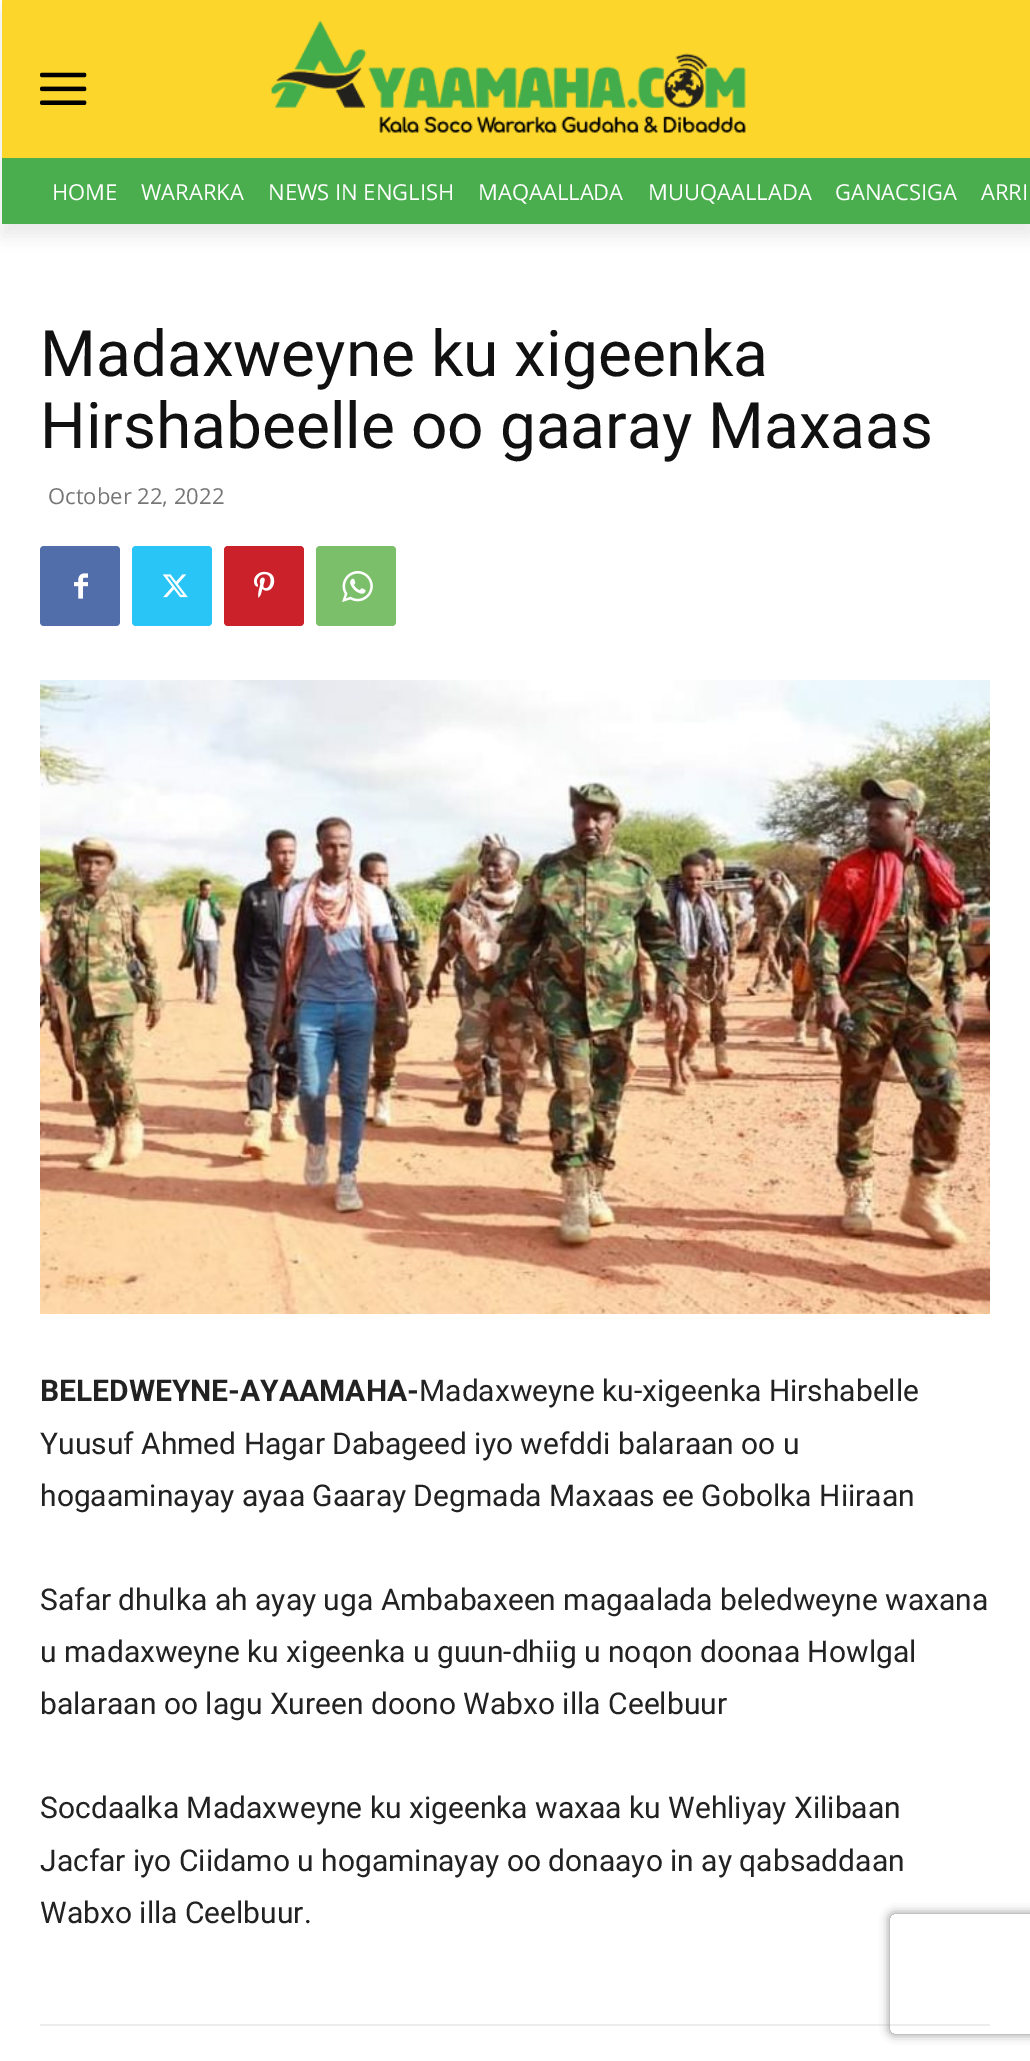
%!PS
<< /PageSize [1030 2061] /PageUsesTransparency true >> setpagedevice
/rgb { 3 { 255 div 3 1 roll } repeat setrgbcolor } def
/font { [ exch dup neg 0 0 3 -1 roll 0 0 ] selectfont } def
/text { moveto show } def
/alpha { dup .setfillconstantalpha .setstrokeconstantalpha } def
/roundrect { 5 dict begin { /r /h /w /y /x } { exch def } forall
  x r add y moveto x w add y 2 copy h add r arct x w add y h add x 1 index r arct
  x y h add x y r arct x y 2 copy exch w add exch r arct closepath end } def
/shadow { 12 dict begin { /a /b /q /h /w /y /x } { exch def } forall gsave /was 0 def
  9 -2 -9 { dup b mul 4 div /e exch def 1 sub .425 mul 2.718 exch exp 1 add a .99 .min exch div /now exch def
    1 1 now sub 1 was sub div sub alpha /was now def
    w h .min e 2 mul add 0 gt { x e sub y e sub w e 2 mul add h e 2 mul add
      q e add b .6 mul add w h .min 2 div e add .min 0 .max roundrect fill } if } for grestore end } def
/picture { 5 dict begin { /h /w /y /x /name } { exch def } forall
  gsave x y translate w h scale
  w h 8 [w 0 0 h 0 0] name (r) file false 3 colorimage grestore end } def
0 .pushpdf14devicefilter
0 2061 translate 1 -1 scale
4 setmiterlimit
255 255 255 rgb
0 0 1030 2061 rectfill
252 214 43 rgb
2 0 1028 158 rectfill
(img_01.rgb) 40 72 47 33 picture
(img_02.rgb) 271 20 475 114 picture
74 174 78 rgb
2 158 1028 66 rectfill
gsave
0 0 moveto 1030 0 rlineto 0 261 rlineto -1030 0 rlineto closepath 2 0 moveto 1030 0 rlineto 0 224 rlineto -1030 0 rlineto closepath eoclip newpath
0 0 0 rgb
2 12 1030 224 0 8 0.08 shadow
grestore
81 110 171 rgb
40 546 80 80 4 roundrect fill
(img_03.rgb) 74 573 14 26 picture
41 197 246 rgb
132 546 80 80 4 roundrect fill
(img_04.rgb) 162 574 26 24 picture
202 33 42 rgb
224 546 80 80 4 roundrect fill
(img_05.rgb) 254 571 21 27 picture
123 191 106 rgb
316 546 80 80 4 roundrect fill
(img_06.rgb) 342 571 31 31 picture
(img_07.rgb) 40 680 950 634 picture
237 237 237 rgb
40 2024 950 2 rectfill
gsave
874 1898 moveto 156 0 rlineto 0 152 rlineto -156 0 rlineto closepath 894 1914 moveto 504 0 rlineto 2 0 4 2 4 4 rcurveto 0 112 rlineto 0 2 -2 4 -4 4 rcurveto -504 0 rlineto -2 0 -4 -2 -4 -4 rcurveto 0 -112 rlineto 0 -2 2 -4 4 -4 rcurveto closepath eoclip newpath
128 128 128 rgb
890 1914 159 120 4 5 1 shadow
grestore
/OpenSans-Regular 22 font
255 255 255 rgb
(HOME) 52 200 text
(WARARKA) 141 200 text
(NEWS IN ENGLISH) 268 200 text
(MAQAALLADA) 478 200 text
(MUUQAALLADA) 648 200 text
(GANACSIGA) 835 200 text
(ARRI) 981 200 text
/Roboto-Regular 64 font
17 17 17 rgb
(Madaxweyne ku xigeenka) 40 376 text
(Hirshabeelle oo gaaray Maxaas) 40 448 text
/OpenSans-Regular 22 font
118 118 118 rgb
(October 22, 2022) 48 504 text
/Roboto-Bold 30 font
34 34 34 rgb
(BELEDWEYNE-AYAAMAHA-) 40 1401 text
/Roboto-Regular 30 font
(Madaxweyne ku-xigeenka Hirshabelle) 419 1401 text
(Yuusuf Ahmed Hagar Dabageed iyo wefddi balaraan oo u) 40 1454 text
(hogaaminayay ayaa Gaaray Degmada Maxaas ee Gobolka Hiiraan) 40 1506 text
(Safar dhulka ah ayay uga Ambabaxeen magaalada beledweyne waxana) 40 1610 text
(u madaxweyne ku xigeenka u guun-dhiig u noqon doonaa Howlgal) 40 1662 text
(balaraan oo lagu Xureen doono Wabxo illa Ceelbuur) 40 1714 text
(Socdaalka Madaxweyne ku xigeenka waxaa ku Wehliyay Xilibaan) 40 1818 text
(Jacfar iyo Ciidamo u hogaminayay oo donaayo in ay qabsaddaan) 40 1871 text
(Wabxo illa Ceelbuur.) 40 1923 text
.poppdf14devicefilter showpage
